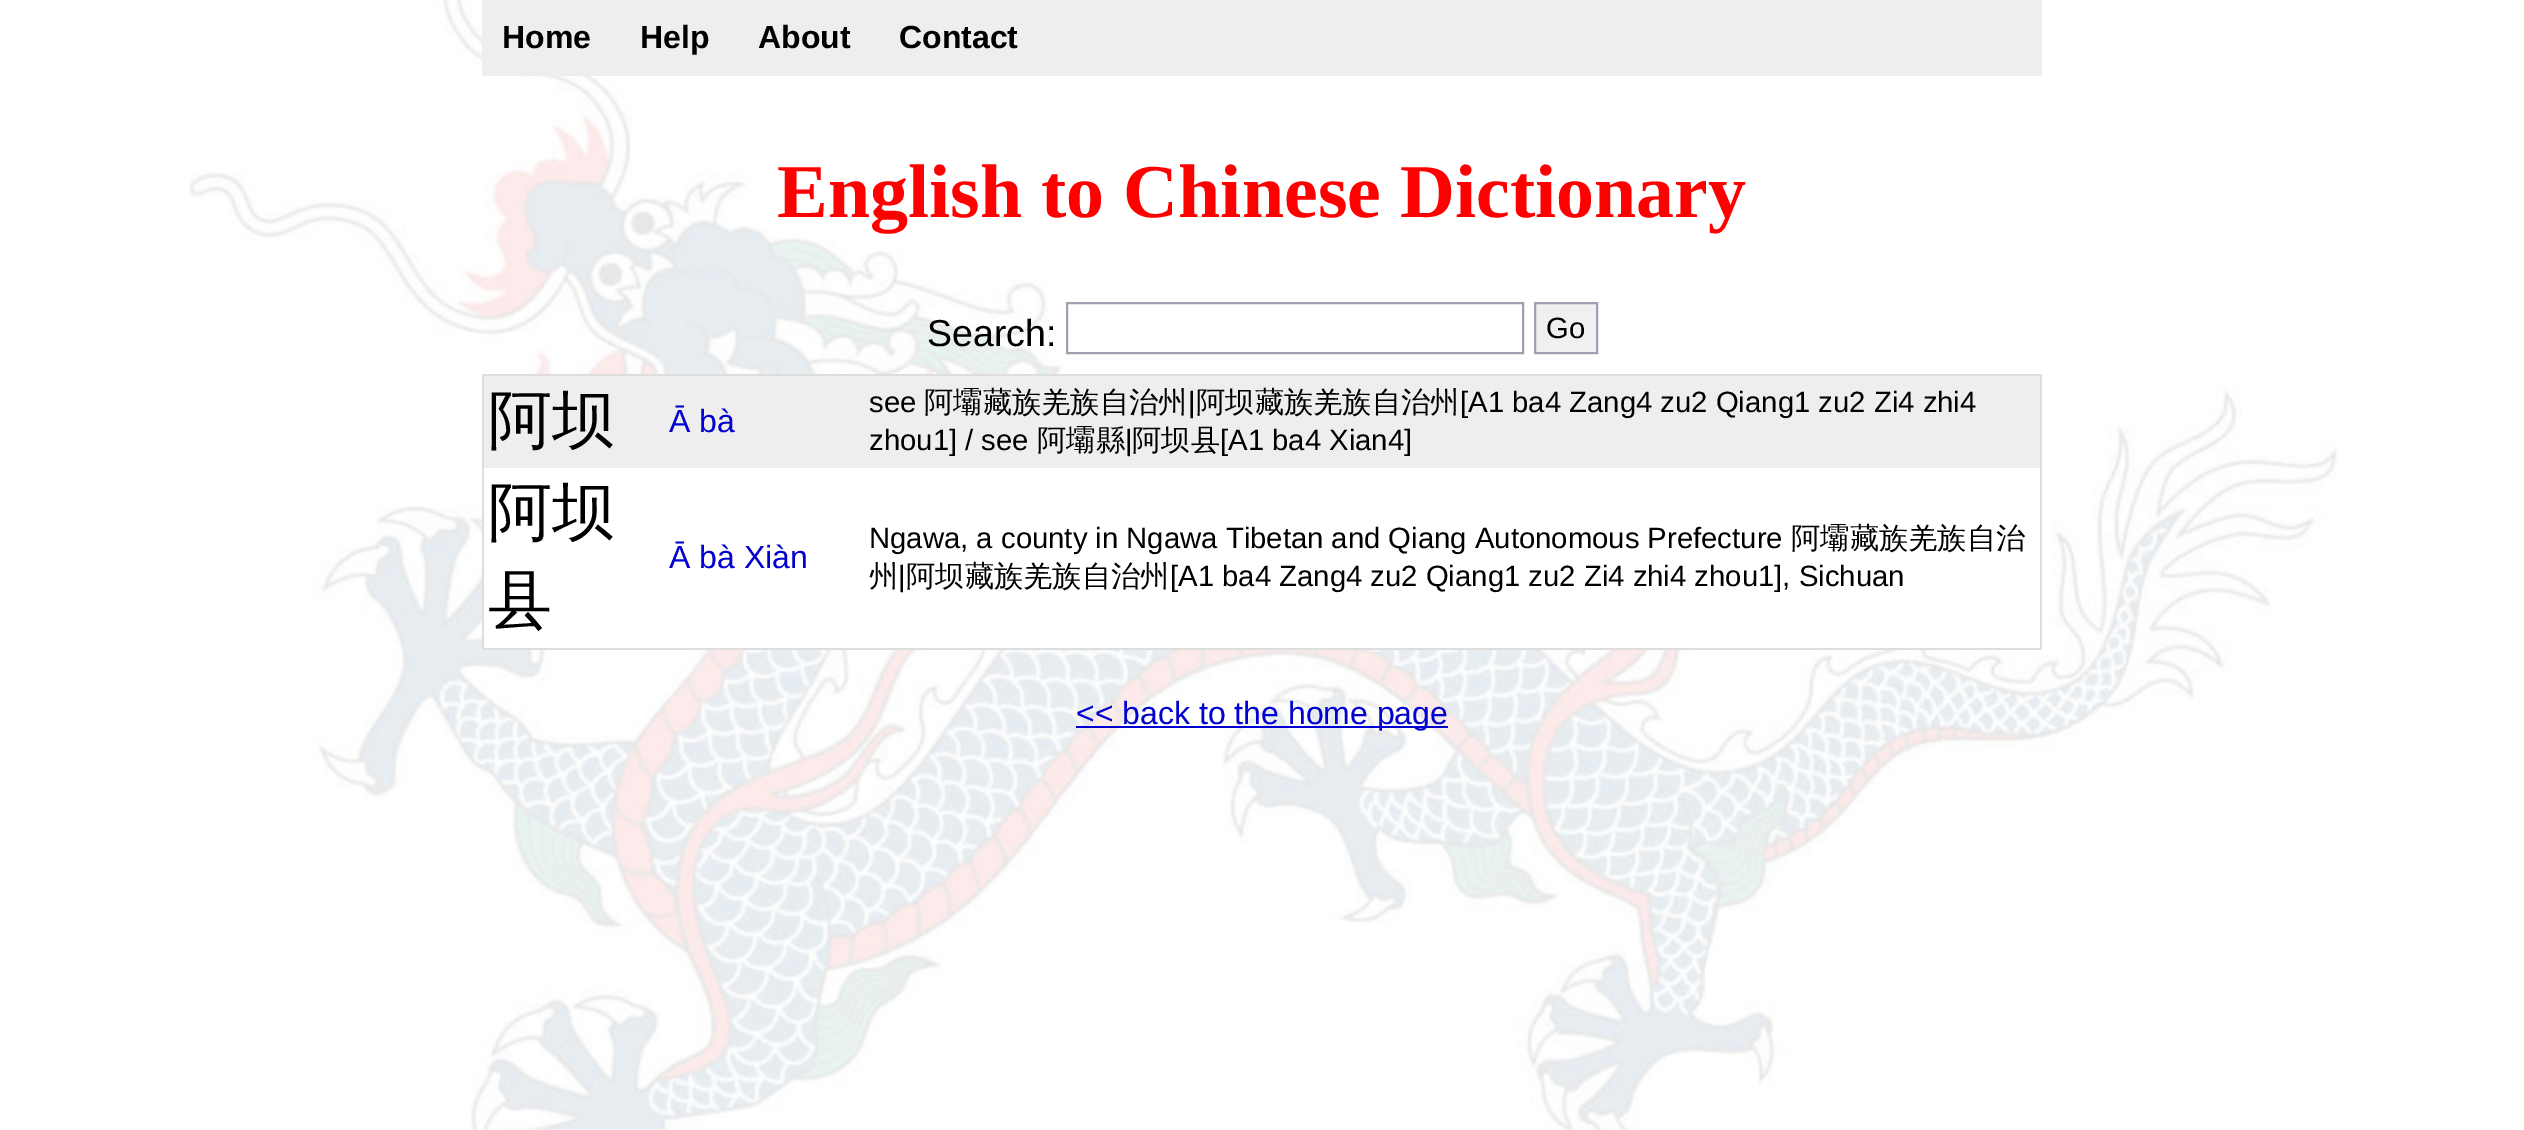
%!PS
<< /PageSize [2524 1130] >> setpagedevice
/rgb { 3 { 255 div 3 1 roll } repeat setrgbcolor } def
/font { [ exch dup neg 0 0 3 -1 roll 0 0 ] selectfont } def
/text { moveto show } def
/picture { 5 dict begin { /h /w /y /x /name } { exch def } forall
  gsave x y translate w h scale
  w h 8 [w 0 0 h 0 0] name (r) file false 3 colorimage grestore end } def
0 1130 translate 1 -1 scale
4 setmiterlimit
255 255 255 rgb
0 0 2524 1130 rectfill
(img_01.rgb) 189 0 2148 1130 picture
238 238 238 rgb
482 0 1560 76 rectfill
160 160 176 rgb
2 setlinewidth
1067 303 456 50 rectstroke
240 240 240 rgb
1535 303 moveto 62 0 rlineto 0 50 rlineto -62 0 rlineto closepath gsave fill grestore
160 160 176 rgb
stroke
255 255 255 rgb
484 468 1451 180 rectfill
221 221 221 rgb
482 374 1560 2 rectfill
2040 374 2 276 rectfill
482 648 1560 2 rectfill
482 374 2 276 rectfill
238 238 238 rgb
484 376 1556 92 rectfill
0 0 208 rgb
1076 726 372 2 rectfill
/LiberationSans-Bold 32 font
0 0 0 rgb
(Home) 502 48 text
(Help) 640 48 text
(About) 758 48 text
(Contact) 899 48 text
/LiberationSerif-Bold 76 font
255 0 0 rgb
(English to Chinese Dictionary) 777 217 text
/LiberationSans-Regular 37.5 font
0 0 0 rgb
(Search:) 927 346 text
/LiberationSans-Regular 29.3 font
(Go) 1546 338 text
/WenQuanYiZenHei-Medium 64 font
(阿坝) 488 442 text
/LiberationSans-Regular 32 font
0 0 208 rgb
(Ā bà) 669 432 text
/LiberationSans-Regular 29.3 font
0 0 0 rgb
(see) 869 412 text
/WenQuanYiZenHei-Medium 29.3 font
(阿壩藏族羌族自治州) 924 412 text
/LiberationSans-Regular 29.3 font
(|) 1188 412 text
/WenQuanYiZenHei-Medium 29.3 font
(阿坝藏族羌族自治州) 1196 412 text
/LiberationSans-Regular 29.3 font
([A1 ba4 Zang4 zu2 Qiang1 zu2 Zi4 zhi4) 1460 412 text
(zhou1] / see) 869 450 text
/WenQuanYiZenHei-Medium 29.3 font
(阿壩縣) 1037 450 text
/LiberationSans-Regular 29.3 font
(|) 1125 450 text
/WenQuanYiZenHei-Medium 29.3 font
(阿坝县) 1132 450 text
/LiberationSans-Regular 29.3 font
([A1 ba4 Xian4]) 1220 450 text
/WenQuanYiZenHei-Medium 64 font
(阿坝) 488 534 text
(县) 488 622 text
/LiberationSans-Regular 32 font
0 0 208 rgb
(Ā bà Xiàn) 669 568 text
/LiberationSans-Regular 29.3 font
0 0 0 rgb
(Ngawa, a county in Ngawa Tibetan and Qiang Autonomous Prefecture) 869 548 text
/WenQuanYiZenHei-Medium 29.3 font
(阿壩藏族羌族自治) 1791 548 text
(州) 869 586 text
/LiberationSans-Regular 29.3 font
(|) 898 586 text
/WenQuanYiZenHei-Medium 29.3 font
(阿坝藏族羌族自治州) 906 586 text
/LiberationSans-Regular 29.3 font
([A1 ba4 Zang4 zu2 Qiang1 zu2 Zi4 zhi4 zhou1], Sichuan) 1170 586 text
/LiberationSans-Regular 32 font
0 0 208 rgb
(<< back to the home page) 1076 724 text
showpage
